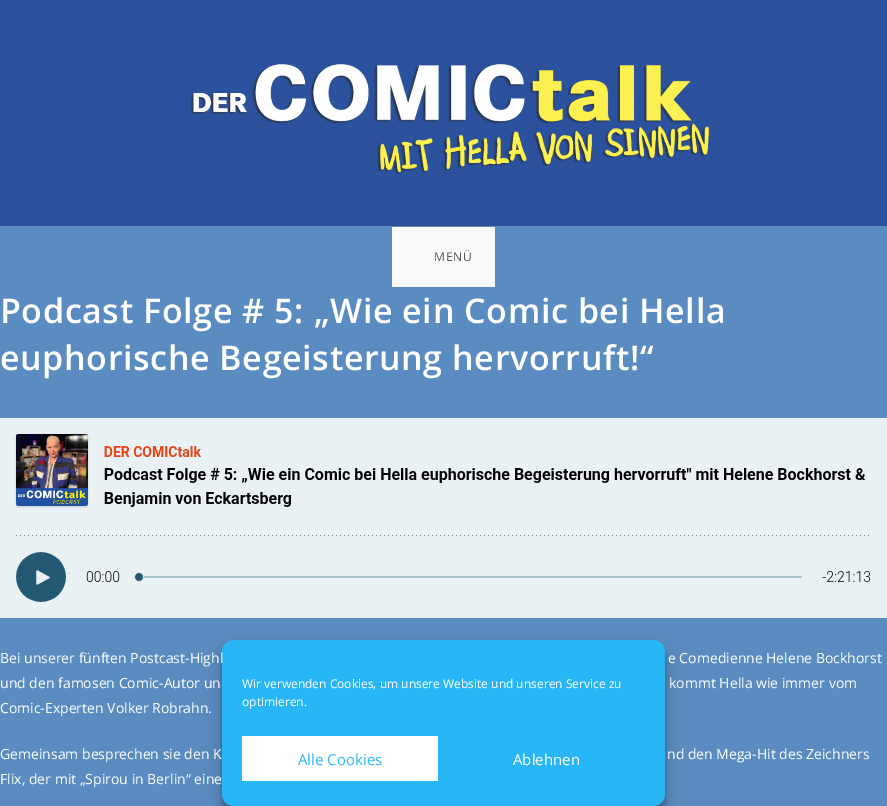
%!PS
<< /PageSize [887 806] /PageUsesTransparency true >> setpagedevice
/rgb { 3 { 255 div 3 1 roll } repeat setrgbcolor } def
/font { [ exch dup neg 0 0 3 -1 roll 0 0 ] selectfont } def
/text { moveto show } def
/alpha { dup .setfillconstantalpha .setstrokeconstantalpha } def
/roundrect { 5 dict begin { /r /h /w /y /x } { exch def } forall
  x r add y moveto x w add y 2 copy h add r arct x w add y h add x 1 index r arct
  x y h add x y r arct x y 2 copy exch w add exch r arct closepath end } def
/shadow { 12 dict begin { /a /b /q /h /w /y /x } { exch def } forall gsave /was 0 def
  9 -2 -9 { dup b mul 4 div /e exch def 1 sub .425 mul 2.718 exch exp 1 add a .99 .min exch div /now exch def
    1 1 now sub 1 was sub div sub alpha /was now def
    w h .min e 2 mul add 0 gt { x e sub y e sub w e 2 mul add h e 2 mul add
      q e add b .6 mul add w h .min 2 div e add .min 0 .max roundrect fill } if } for grestore end } def
/picture { 5 dict begin { /h /w /y /x /name } { exch def } forall
  gsave x y translate w h scale
  w h 8 [w 0 0 h 0 0] name (r) file false 3 colorimage grestore end } def
0 .pushpdf14devicefilter
0 806 translate 1 -1 scale
4 setmiterlimit
90 140 193 rgb
0 0 887 806 rectfill
44 82 158 rgb
0 0 887 226 rectfill
(img_01.rgb) 40 18 807 190 picture
249 249 249 rgb
392 227 103 60 rectfill
(img_02.rgb) 0 418 887 200 picture
0 0 0 rgb
222 646 443 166 12 3 0.23 shadow
222 650 443 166 12 10 0.19 shadow
41 182 246 rgb
222 640 443 166 12 roundrect fill
255 255 255 rgb
242 736 196 45 rectfill
/OpenSans-Regular 12 font
85 85 85 rgb
434 261 moveto 1 0 (MENÜ) ashow
/OpenSans-SemiBold 34 font
255 255 255 rgb
0 323 moveto 0.6 0 (Podcast Folge # 5: „Wie ein Comic bei Hella) ashow
0 370 moveto 0.6 0 (euphorische Begeisterung hervorruft!“) ashow
/OpenSans-Regular 14 font
(Bei unserer fünften Postcast-Highl) 0 663 text
(e Comedienne Helene Bockhorst) 668 663 text
(und den famosen Comic-Autor un) 0 688 text
(kommt Hella wie immer vom) 669 688 text
(Comic-Experten Volker Robrahn.) 0 713 text
(Gemeinsam besprechen sie den K) 0 759 text
(nd den Mega-Hit des Zeichners) 667 759 text
(Flix, der mit „Spirou in Berlin“ eine) 0 784 text
/OpenSans-Regular 12 font
(Wir verwenden Cookies, um unsere Website und unseren Service zu) 242 688 text
(optimieren.) 242 706 text
/OpenSans-Regular 15 font
41 182 246 rgb
(Alle Cookies) 298 765 text
255 255 255 rgb
(Ablehnen) 513 765 text
.poppdf14devicefilter showpage
